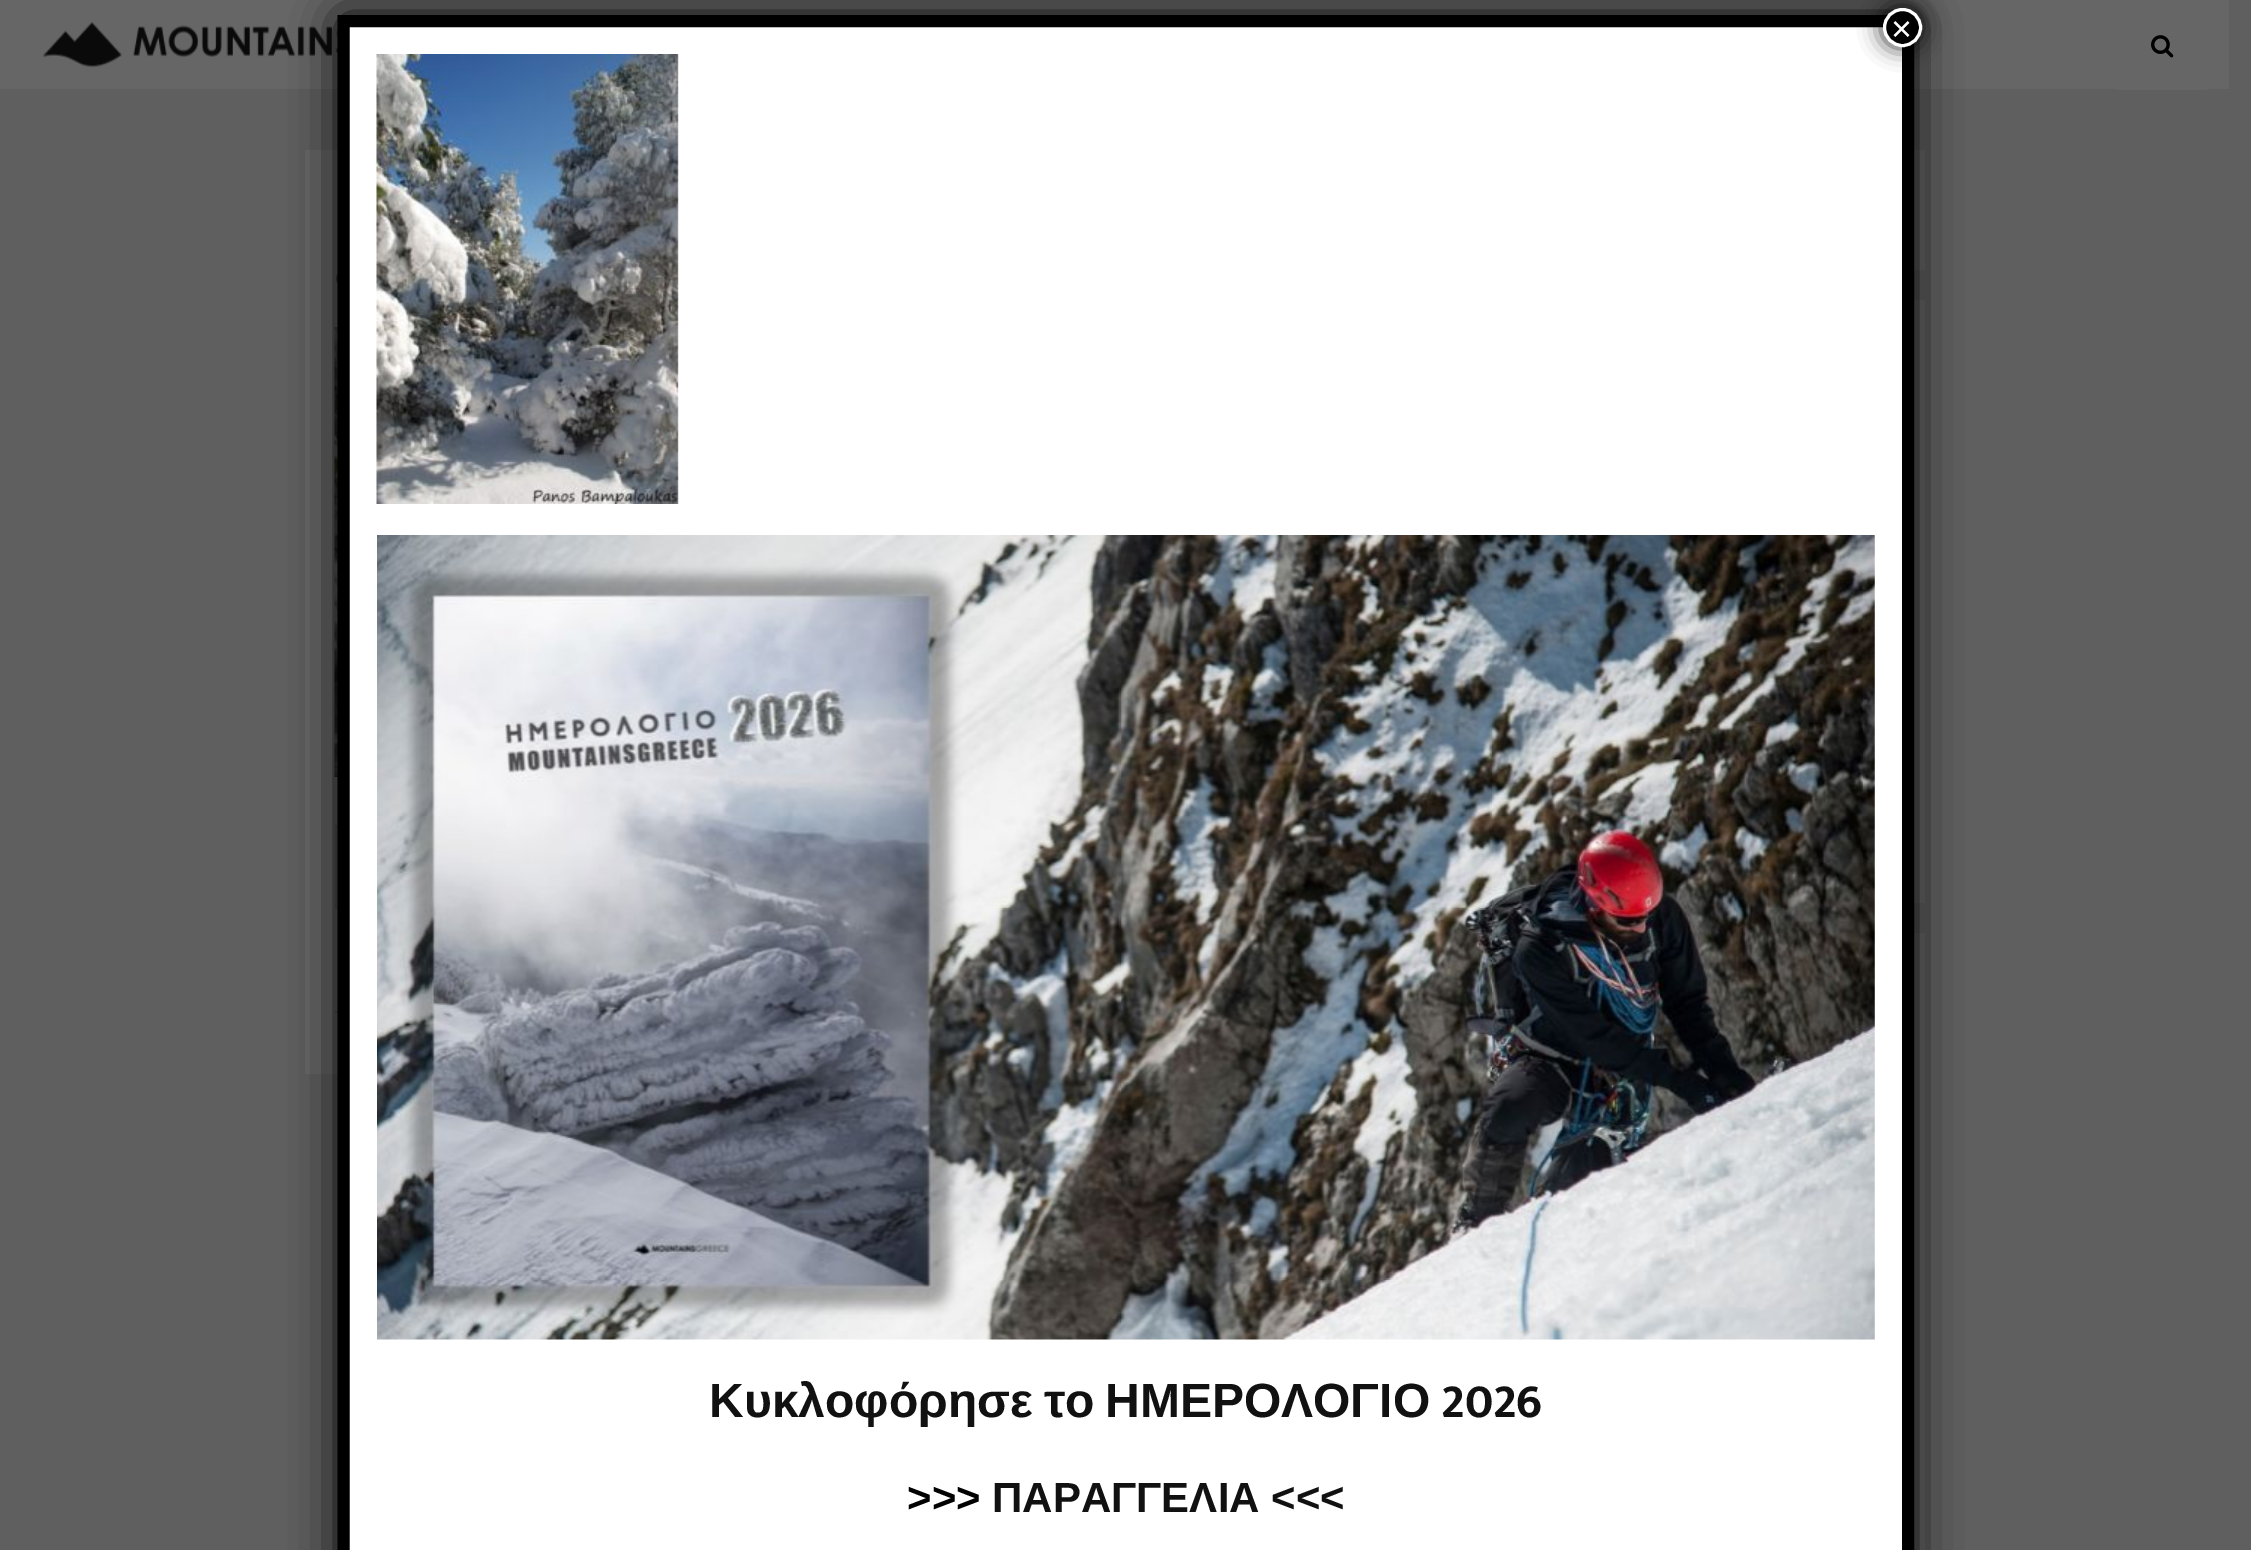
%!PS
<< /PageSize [2251 1550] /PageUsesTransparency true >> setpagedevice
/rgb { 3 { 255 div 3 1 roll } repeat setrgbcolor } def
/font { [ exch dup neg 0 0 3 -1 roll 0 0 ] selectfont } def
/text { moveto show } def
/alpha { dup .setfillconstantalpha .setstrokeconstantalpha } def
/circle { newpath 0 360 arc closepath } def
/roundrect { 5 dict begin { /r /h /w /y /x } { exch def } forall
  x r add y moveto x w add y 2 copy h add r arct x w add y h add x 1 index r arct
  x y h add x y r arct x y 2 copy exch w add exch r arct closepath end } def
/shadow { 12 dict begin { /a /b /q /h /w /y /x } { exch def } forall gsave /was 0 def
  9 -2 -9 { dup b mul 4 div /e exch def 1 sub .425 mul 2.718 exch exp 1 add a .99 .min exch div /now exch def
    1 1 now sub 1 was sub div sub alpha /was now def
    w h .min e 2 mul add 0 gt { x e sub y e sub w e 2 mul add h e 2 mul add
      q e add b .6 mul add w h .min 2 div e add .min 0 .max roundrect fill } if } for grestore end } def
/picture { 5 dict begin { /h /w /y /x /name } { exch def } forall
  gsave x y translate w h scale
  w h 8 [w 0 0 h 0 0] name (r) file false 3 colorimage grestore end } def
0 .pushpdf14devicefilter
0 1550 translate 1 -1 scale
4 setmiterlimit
95 95 95 rgb
0 0 2251 1550 rectfill
102 102 102 rgb
0 0 2229 89 rectfill
(img_01.rgb) 43 21 295 47 picture
2117 89 90 1 rectfill
(img_02.rgb) 2151 35 23 23 picture
305 150 33 924 rectfill
(img_03.rgb) 336 273 2 11 picture
(img_04.rgb) 334 327 4 450 picture
89 89 89 rgb
2 setlinewidth
336 826 1078 82 rectstroke
335 1011 3 2 rectfill
102 102 102 rgb
1914 150 11 120 rectfill
1914 300 11 603 rectfill
1914 933 11 617 rectfill
2 2 2 rgb
338 15 1576 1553 5 22.5 1 shadow
255 255 255 rgb
349 27 1553 1523 rectfill
0 0 0 rgb
12 setlinewidth
343.5 21 moveto 1564.5 0 rlineto 0 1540.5 rlineto -1564.5 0 rlineto closepath stroke
2 2 2 rgb
1881 6 42 42 21 11 0.75 shadow
0 0 0 rgb
1902.5 27.5 18 circle gsave fill grestore
255 255 255 rgb
3 setlinewidth
stroke
(img_05.rgb) 376 54 303 450 picture
(img_06.rgb) 377 535 1498 805 picture
/LiberationSans-Regular 36 font
(×) 1891 41 text
/LiberationSans-Bold 48 font
17 17 17 rgb
709 1417 moveto -2 0 32 (Κυκλοφόρησε το) widthshow
(ΗΜΕΡΟΛΟΓΙΟ) 1105 1417 text
/MuktaVaani-Bold 48 font
(2026) 1441 1417 text
/LiberationSans-Bold 42 font
0 0 0 rgb
(>>>) 907 1512 text
17 17 17 rgb
(ΠΑΡΑΓΓΕΛΙΑ <<<) 992 1512 text
.poppdf14devicefilter showpage
